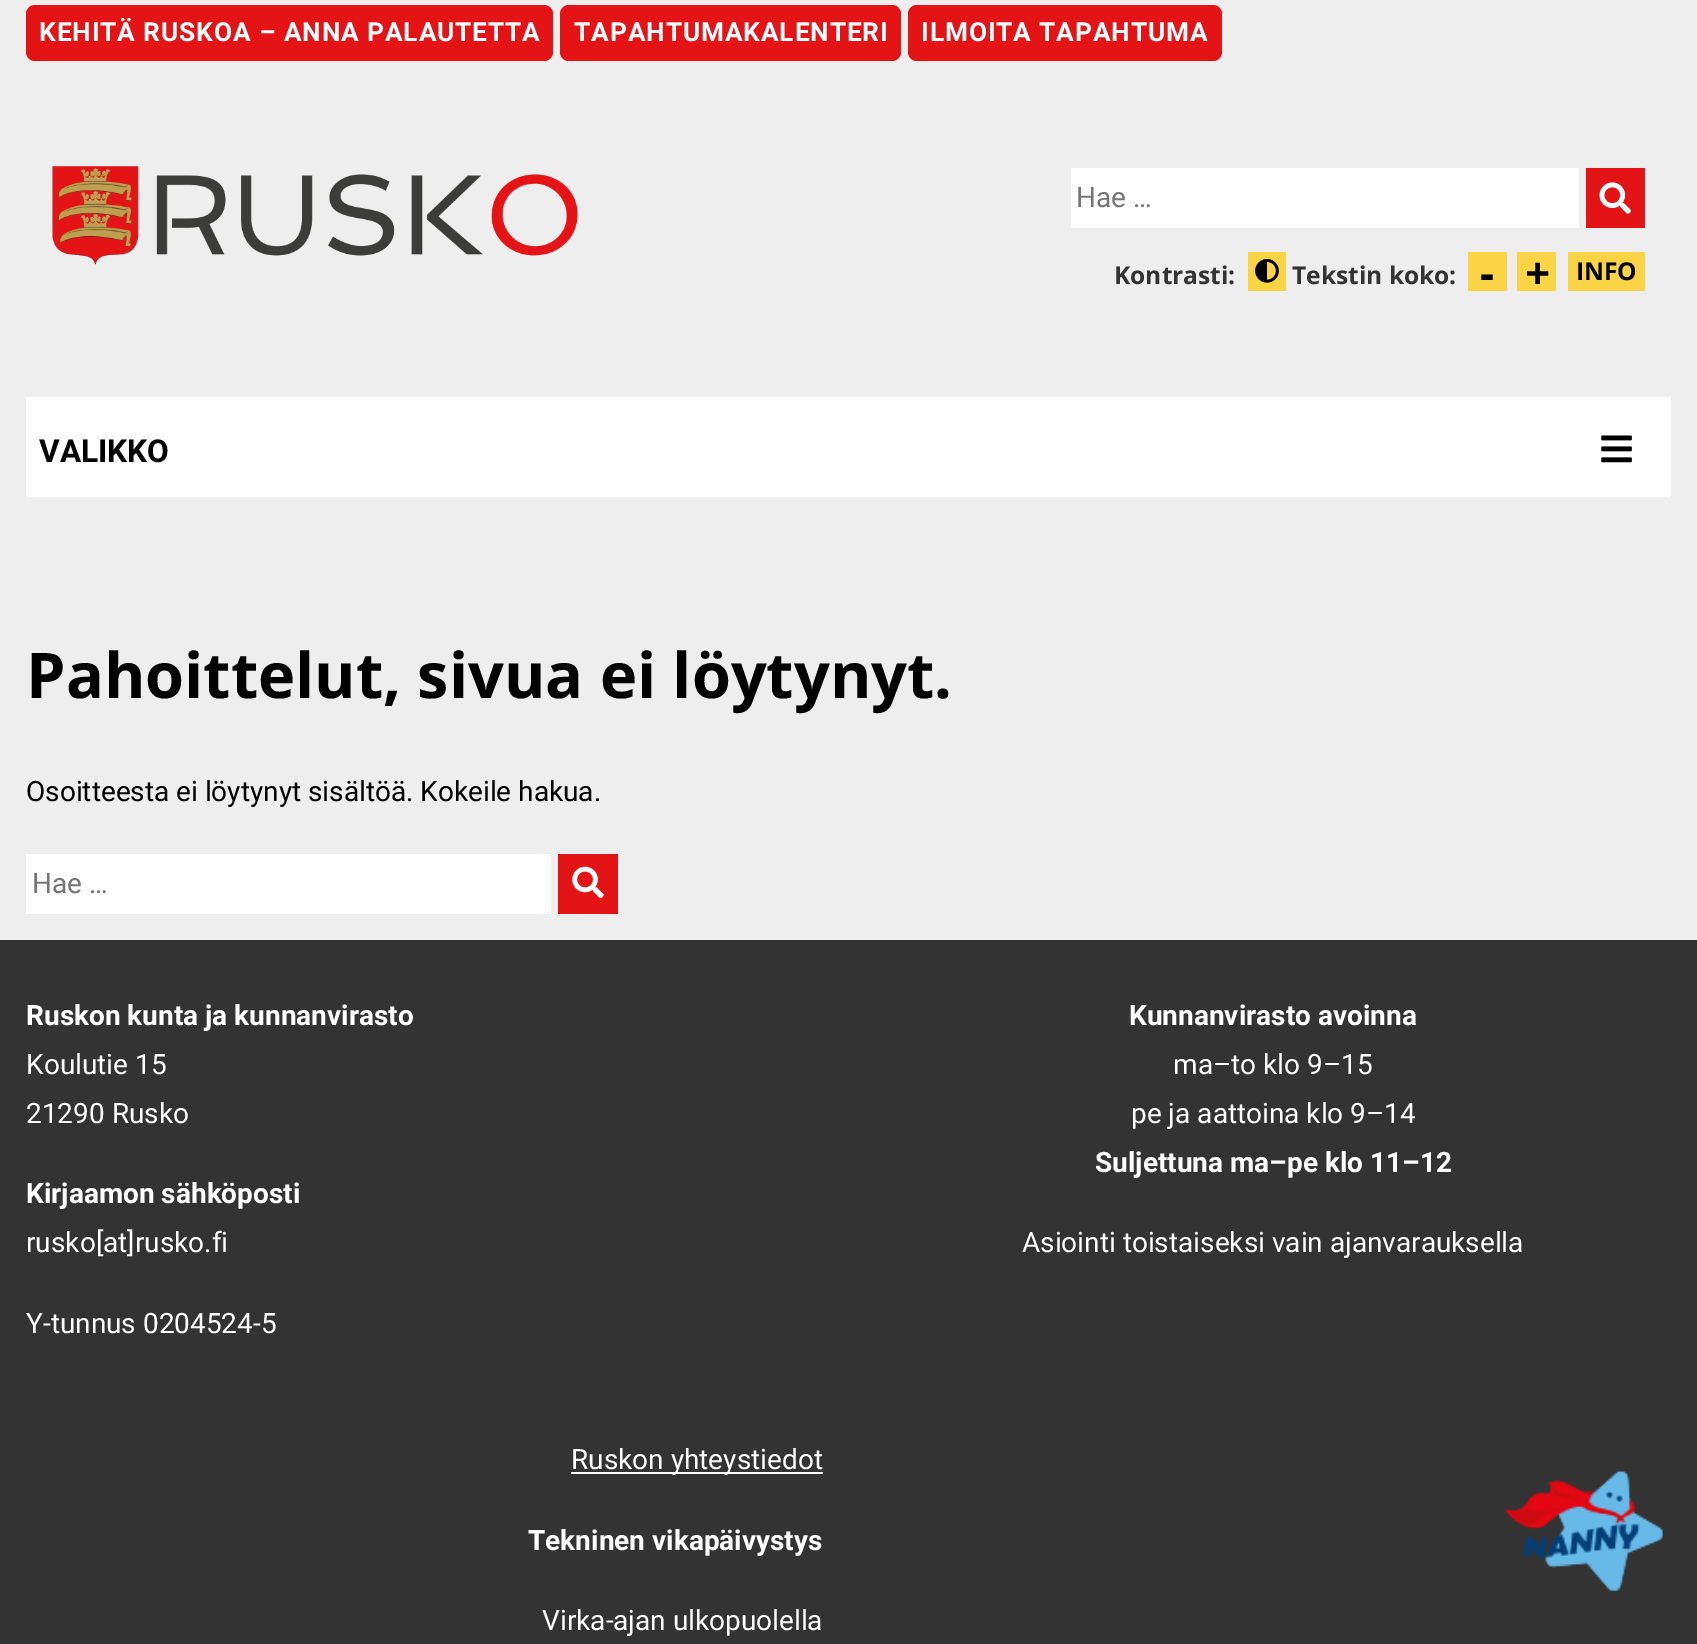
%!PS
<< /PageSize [1697 1644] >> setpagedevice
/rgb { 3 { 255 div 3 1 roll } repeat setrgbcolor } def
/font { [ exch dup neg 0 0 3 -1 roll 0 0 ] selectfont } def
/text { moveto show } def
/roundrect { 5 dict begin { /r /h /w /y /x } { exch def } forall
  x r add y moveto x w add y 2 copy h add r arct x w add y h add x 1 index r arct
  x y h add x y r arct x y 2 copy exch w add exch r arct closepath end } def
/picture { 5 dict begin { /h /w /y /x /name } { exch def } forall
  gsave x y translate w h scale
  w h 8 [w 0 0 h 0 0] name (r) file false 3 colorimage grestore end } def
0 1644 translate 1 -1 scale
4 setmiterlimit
238 238 238 rgb
0 0 1697 1644 rectfill
228 19 22 rgb
26 5 527 56 9 roundrect fill
560 5 341 56 9 roundrect fill
908 5 314 56 9 roundrect fill
(img_01.rgb) 52 166 526 99 picture
255 255 255 rgb
1071 168 508 60 rectfill
228 19 22 rgb
1586 168 59 60 rectfill
(img_02.rgb) 1599 182 32 32 picture
250 212 69 rgb
1248 252 38 39 rectfill
(img_03.rgb) 1255 258 24 25 picture
1468 252 39 39 rectfill
1517 252 39 39 rectfill
1568 252 77 39 rectfill
255 255 255 rgb
26 397 1645 100 rectfill
(img_04.rgb) 1601 435 31 28 picture
26 854 525 60 rectfill
228 19 22 rgb
558 854 60 60 rectfill
(img_05.rgb) 572 866 32 33 picture
51 51 51 rgb
0 940 1697 704 rectfill
255 255 255 rgb
571 1472 252 2 rectfill
(img_06.rgb) 1505 1471 158 120 picture
/Roboto-Bold 26.25 font
39 41 moveto 0.9 0 (KEHITÄ RUSKOA – ANNA PALAUTETTA) ashow
574 41 moveto 0.9 0 (TAPAHTUMAKALENTERI) ashow
921 41 moveto 0.9 0 (ILMOITA TAPAHTUMA) ashow
/Roboto-Regular 28 font
117 117 117 rgb
(Hae …) 1076 207 text
/OpenSans-Bold 24.5 font
51 51 51 rgb
(Kontrasti:) 1114 284 text
(Tekstin koko:) 1292 284 text
/OpenSans-Bold 44 font
0 0 0 rgb
(-) 1480 289 text
(+) 1525 289 text
/OpenSans-Bold 24.5 font
(INFO) 1576 280 text
/Roboto-Bold 31.5 font
(VALIKKO) 39 462 text
/OpenSans-Bold 63 font
(Pahoittelut, sivua ei löytynyt.) 26 698 text
/Roboto-Regular 28 font
(Osoitteesta ei löytynyt sisältöä. Kokeile hakua.) 26 801 text
117 117 117 rgb
(Hae …) 32 893 text
/Roboto-Bold 28 font
255 255 255 rgb
(Ruskon kunta ja kunnanvirasto) 26 1025 text
/Roboto-Regular 28 font
(Koulutie 15) 26 1074 text
(21290 Rusko) 26 1123 text
/Roboto-Bold 28 font
(Kirjaamon sähköposti) 26 1203 text
/Roboto-Regular 28 font
(rusko[at]rusko.fi) 26 1252 text
(Y-tunnus 0204524-5) 26 1333 text
/Roboto-Bold 28 font
(Kunnanvirasto avoinna) 1129 1025 text
/Roboto-Regular 28 font
(ma–to klo 9–15) 1173 1074 text
(pe ja aattoina klo 9–14) 1131 1123 text
/Roboto-Bold 28 font
(Suljettuna ma–pe klo 11–12) 1095 1172 text
/Roboto-Regular 28 font
(Asiointi toistaiseksi vain ajanvarauksella) 1022 1252 text
(Ruskon yhteystiedot) 571 1469 text
/Roboto-Bold 28 font
(Tekninen vikapäivystys) 528 1550 text
/Roboto-Regular 28 font
(Virka-ajan ulkopuolella) 542 1630 text
showpage
